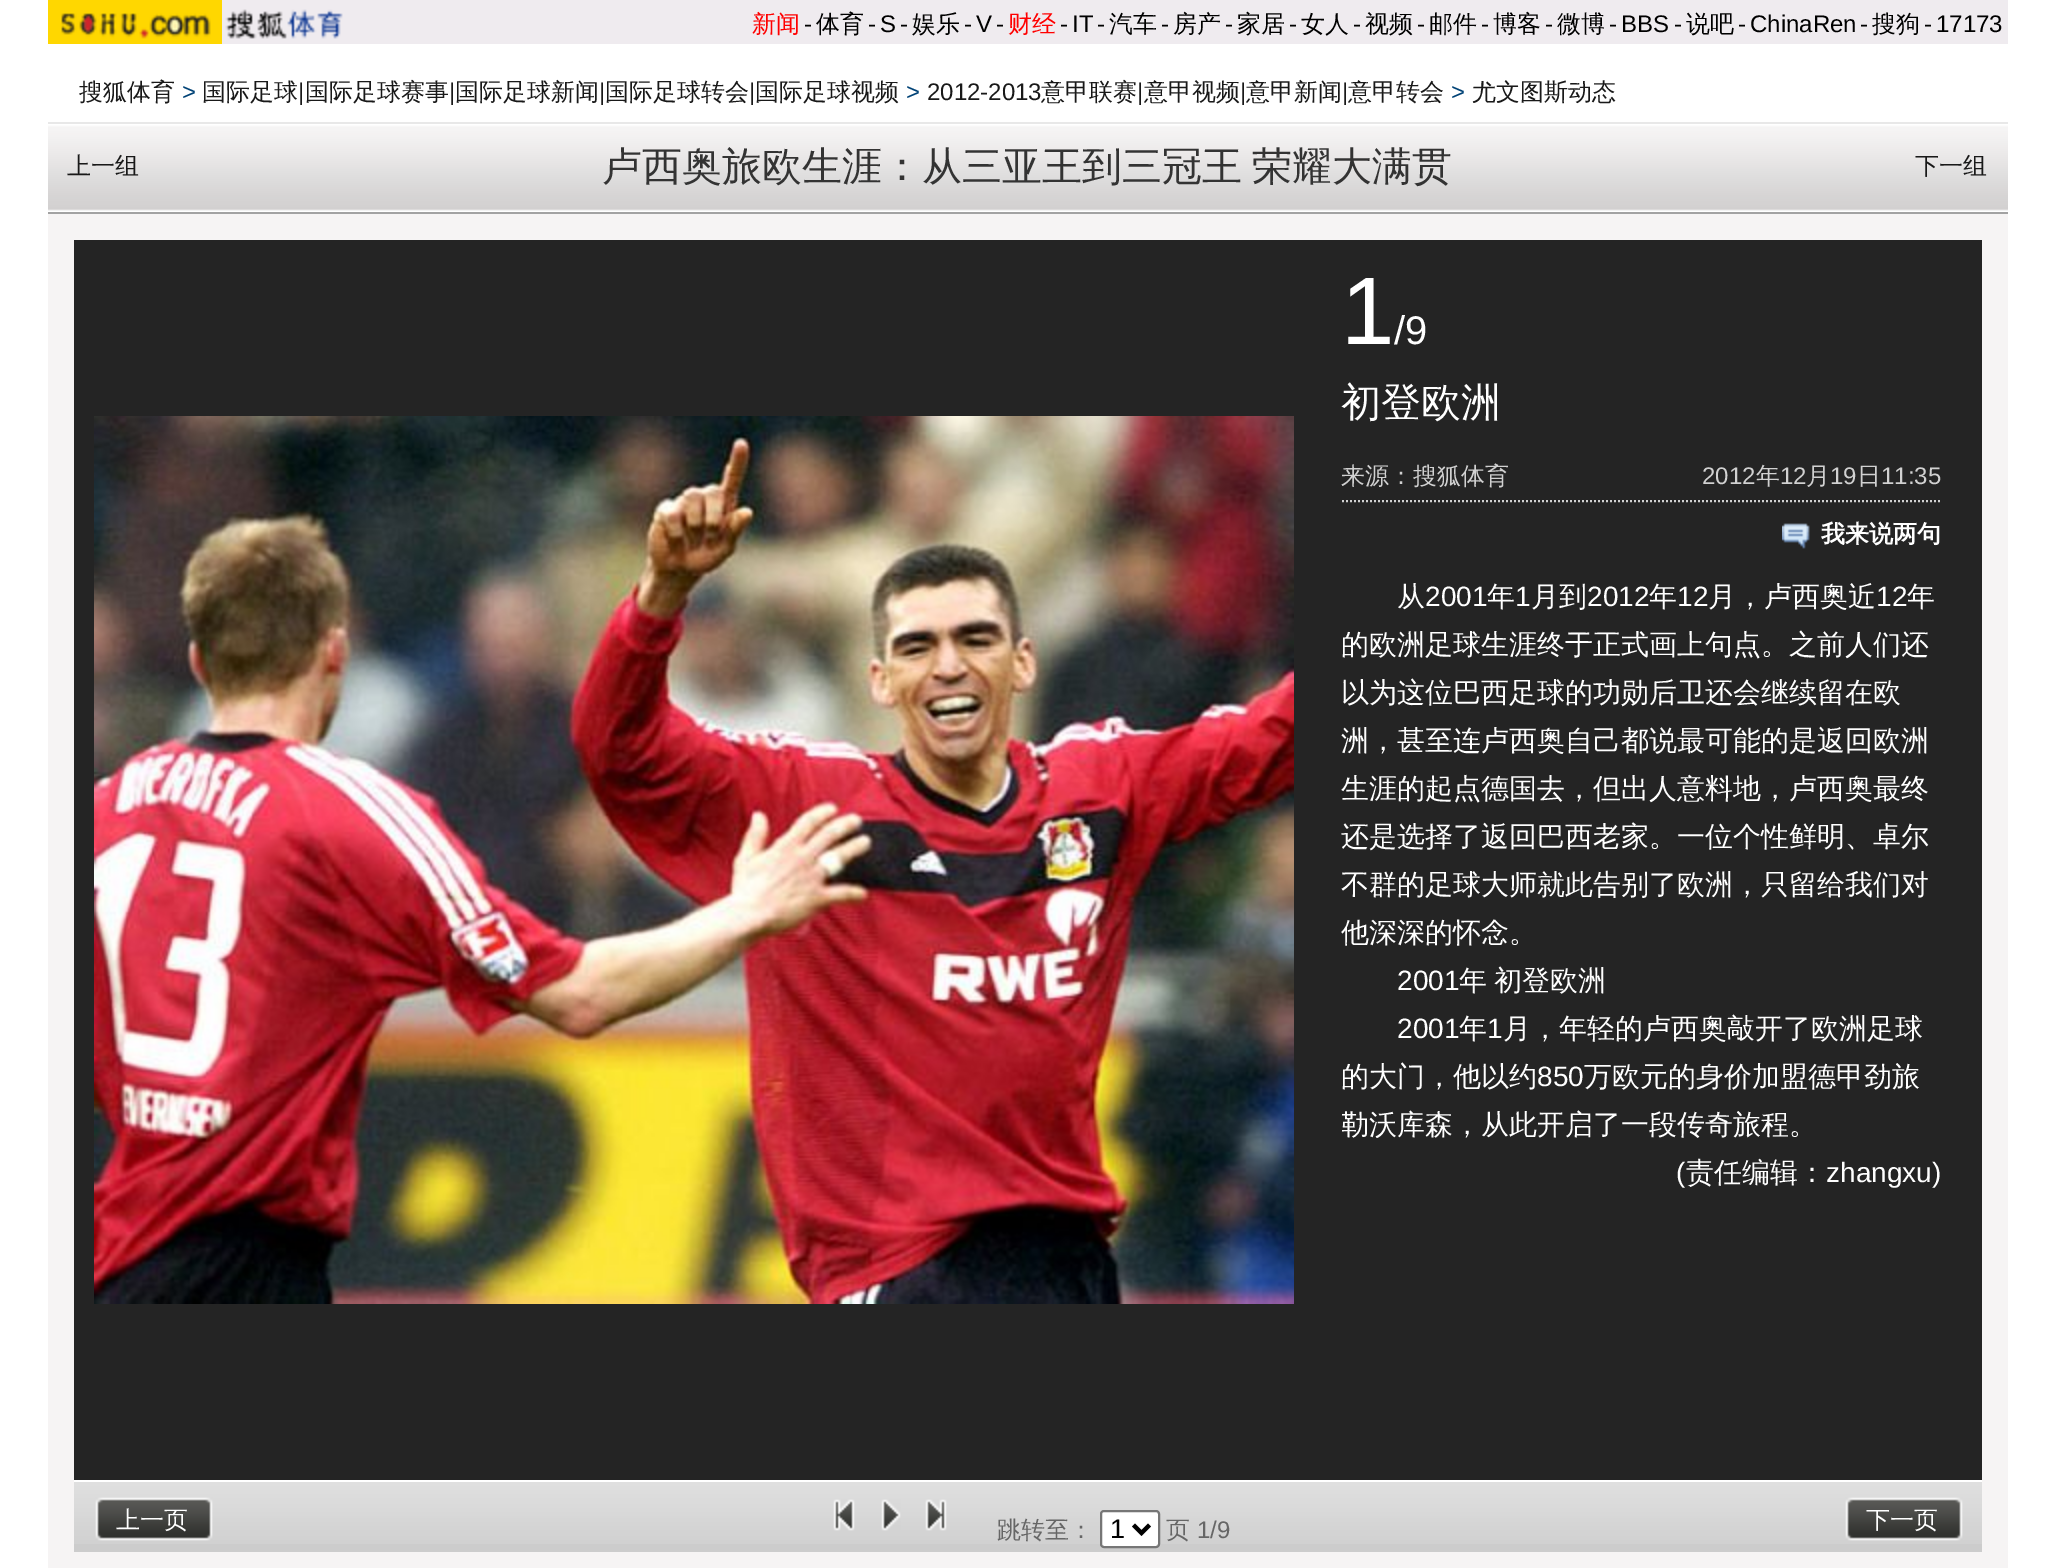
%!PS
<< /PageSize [2053 1568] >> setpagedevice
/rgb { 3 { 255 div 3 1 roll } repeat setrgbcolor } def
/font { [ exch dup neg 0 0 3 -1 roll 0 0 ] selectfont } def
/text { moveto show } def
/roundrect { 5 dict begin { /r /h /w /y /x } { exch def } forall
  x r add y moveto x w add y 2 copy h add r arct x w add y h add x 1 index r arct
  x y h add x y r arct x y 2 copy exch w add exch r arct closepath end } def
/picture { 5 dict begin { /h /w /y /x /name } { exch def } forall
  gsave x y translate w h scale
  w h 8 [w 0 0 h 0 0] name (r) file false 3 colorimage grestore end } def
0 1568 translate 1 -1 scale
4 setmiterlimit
255 255 255 rgb
0 0 2053 1568 rectfill
239 235 239 rgb
222 0 1786 44 rectfill
(img_01.rgb) 48 0 174 44 picture
(img_02.rgb) 225 9 118 30 picture
246 244 244 rgb
48 214 1960 1354 rectfill
(img_03.rgb) 48 124 1960 88 picture
232 232 232 rgb
48 122 1960 2 rectfill
162 162 162 rgb
48 212 1960 2 rectfill
36 36 36 rgb
74 240 1908 1240 rectfill
(img_04.rgb) 94 416 1200 888 picture
209 209 209 rgb
2 setlinewidth
[2 2] 0 setdash
1342 501 moveto 600 0 rlineto stroke
(img_05.rgb) 1782 523 28 26 picture
204 204 204 rgb
74 1544 1908 8 rectfill
(img_06.rgb) 74 1482 1908 62 picture
255 255 255 rgb
74 1480 1908 2 rectfill
(img_07.rgb) 833 1499 22 32 picture
(img_08.rgb) 881 1499 20 32 picture
(img_09.rgb) 925 1499 22 32 picture
(img_10.rgb) 95 1497 118 44 picture
(img_10.rgb) 1845 1497 118 44 picture
1101 1511 58 36 3 roundrect gsave fill grestore
118 118 118 rgb
[] 0 setdash
stroke
0 0 0 rgb
4 setlinewidth
1133.5 1525 moveto 8 8 rlineto 8 -8 rlineto stroke
/WenQuanYiZenHei-Medium 24 font
255 0 0 rgb
(新闻) 752 32 text
/LiberationSans-Regular 24 font
0 0 0 rgb
(-) 804 32 text
/WenQuanYiZenHei-Medium 24 font
(体育) 816 32 text
/LiberationSans-Regular 24 font
(-) 868 32 text
(S) 880 32 text
(-) 900 32 text
/WenQuanYiZenHei-Medium 24 font
(娱乐) 912 32 text
/LiberationSans-Regular 24 font
(-) 964 32 text
(V) 976 32 text
(-) 996 32 text
/WenQuanYiZenHei-Medium 24 font
255 0 0 rgb
(财经) 1008 32 text
/LiberationSans-Regular 24 font
0 0 0 rgb
(-) 1060 32 text
(IT) 1072 32 text
(-) 1097 32 text
/WenQuanYiZenHei-Medium 24 font
(汽车) 1109 32 text
/LiberationSans-Regular 24 font
(-) 1161 32 text
/WenQuanYiZenHei-Medium 24 font
(房产) 1173 32 text
/LiberationSans-Regular 24 font
(-) 1225 32 text
/WenQuanYiZenHei-Medium 24 font
(家居) 1237 32 text
/LiberationSans-Regular 24 font
(-) 1289 32 text
/WenQuanYiZenHei-Medium 24 font
(女人) 1301 32 text
/LiberationSans-Regular 24 font
(-) 1353 32 text
/WenQuanYiZenHei-Medium 24 font
(视频) 1365 32 text
/LiberationSans-Regular 24 font
(-) 1417 32 text
/WenQuanYiZenHei-Medium 24 font
(邮件) 1429 32 text
/LiberationSans-Regular 24 font
(-) 1481 32 text
/WenQuanYiZenHei-Medium 24 font
(博客) 1493 32 text
/LiberationSans-Regular 24 font
(-) 1545 32 text
/WenQuanYiZenHei-Medium 24 font
(微博) 1557 32 text
/LiberationSans-Regular 24 font
(-) 1609 32 text
(BBS) 1621 32 text
(-) 1674 32 text
/WenQuanYiZenHei-Medium 24 font
(说吧) 1686 32 text
/LiberationSans-Regular 24 font
(-) 1738 32 text
(ChinaRen) 1750 32 text
(-) 1860 32 text
/WenQuanYiZenHei-Medium 24 font
(搜狗) 1872 32 text
/LiberationSans-Regular 24 font
(-) 1924 32 text
(17173) 1936 32 text
/WenQuanYiZenHei-Medium 24 font
25 25 25 rgb
(搜狐体育) 79 100 text
/LiberationSans-Regular 24 font
0 66 118 rgb
(>) 182 100 text
/WenQuanYiZenHei-Medium 24 font
25 25 25 rgb
(国际足球) 202 100 text
/LiberationSans-Regular 24 font
(|) 298 100 text
/WenQuanYiZenHei-Medium 24 font
(国际足球赛事) 305 100 text
/LiberationSans-Regular 24 font
(|) 449 100 text
/WenQuanYiZenHei-Medium 24 font
(国际足球新闻) 455 100 text
/LiberationSans-Regular 24 font
(|) 599 100 text
/WenQuanYiZenHei-Medium 24 font
(国际足球转会) 605 100 text
/LiberationSans-Regular 24 font
(|) 749 100 text
/WenQuanYiZenHei-Medium 24 font
(国际足球视频) 755 100 text
/LiberationSans-Regular 24 font
0 66 118 rgb
(>) 906 100 text
25 25 25 rgb
(2012-2013) 927 100 text
/WenQuanYiZenHei-Medium 24 font
(意甲联赛) 1041 100 text
/LiberationSans-Regular 24 font
(|) 1137 100 text
/WenQuanYiZenHei-Medium 24 font
(意甲视频) 1144 100 text
/LiberationSans-Regular 24 font
(|) 1240 100 text
/WenQuanYiZenHei-Medium 24 font
(意甲新闻) 1246 100 text
/LiberationSans-Regular 24 font
(|) 1342 100 text
/WenQuanYiZenHei-Medium 24 font
(意甲转会) 1348 100 text
/LiberationSans-Regular 24 font
0 66 118 rgb
(>) 1451 100 text
/WenQuanYiZenHei-Medium 24 font
25 25 25 rgb
(尤文图斯动态) 1472 100 text
/WenQuanYiZenHei-Medium 40 font
51 51 51 rgb
602 180 moveto -2 0 32 (卢西奥旅欧生涯：从三亚王到三冠王 荣耀大满贯) widthshow
/WenQuanYiZenHei-Medium 24 font
25 25 25 rgb
(上一组) 67 174 text
(下一组) 1915 174 text
/LiberationSans-Regular 96 font
255 255 255 rgb
(1) 1341 344 text
/LiberationSans-Regular 40 font
(/9) 1394 344 text
/WenQuanYiZenHei-Medium 40 font
(初登欧洲) 1341 416 text
/WenQuanYiZenHei-Medium 24 font
209 209 209 rgb
(来源：搜狐体育) 1341 484 text
/LiberationSans-Regular 24 font
(2012) 1702 484 text
/WenQuanYiZenHei-Medium 24 font
(年) 1756 484 text
/LiberationSans-Regular 24 font
(12) 1780 484 text
/WenQuanYiZenHei-Medium 24 font
(月) 1806 484 text
/LiberationSans-Regular 24 font
(19) 1830 484 text
/WenQuanYiZenHei-Medium 24 font
(日) 1857 484 text
/LiberationSans-Regular 24 font
(11:35) 1881 484 text
/WenQuanYiZenHei-Bold 24 font
255 255 255 rgb
(我来说两句) 1821 542 text
/WenQuanYiZenHei-Medium 28 font
(从) 1397 606 text
/LiberationSans-Regular 28 font
(2001) 1425 606 text
/WenQuanYiZenHei-Medium 28 font
(年) 1487 606 text
/LiberationSans-Regular 28 font
(1) 1515 606 text
/WenQuanYiZenHei-Medium 28 font
(月到) 1531 606 text
/LiberationSans-Regular 28 font
(2012) 1587 606 text
/WenQuanYiZenHei-Medium 28 font
(年) 1649 606 text
/LiberationSans-Regular 28 font
(12) 1677 606 text
/WenQuanYiZenHei-Medium 28 font
(月，卢西奥近) 1708 606 text
/LiberationSans-Regular 28 font
(12) 1876 606 text
/WenQuanYiZenHei-Medium 28 font
(年) 1907 606 text
(的欧洲足球生涯终于正式画上句点。之前人们还) 1341 654 text
(以为这位巴西足球的功勋后卫还会继续留在欧) 1341 702 text
(洲，甚至连卢西奥自己都说最可能的是返回欧洲) 1341 750 text
(生涯的起点德国去，但出人意料地，卢西奥最终) 1341 798 text
(还是选择了返回巴西老家。一位个性鲜明、卓尔) 1341 846 text
(不群的足球大师就此告别了欧洲，只留给我们对) 1341 894 text
(他深深的怀念。) 1341 942 text
/LiberationSans-Regular 28 font
(2001) 1397 990 text
/WenQuanYiZenHei-Medium 28 font
1459 990 moveto -1 0 32 (年 初登欧洲) widthshow
/LiberationSans-Regular 28 font
(2001) 1397 1038 text
/WenQuanYiZenHei-Medium 28 font
(年) 1459 1038 text
/LiberationSans-Regular 28 font
(1) 1487 1038 text
/WenQuanYiZenHei-Medium 28 font
(月，年轻的卢西奥敲开了欧洲足球) 1503 1038 text
(的大门，他以约) 1341 1086 text
/LiberationSans-Regular 28 font
(850) 1537 1086 text
/WenQuanYiZenHei-Medium 28 font
(万欧元的身价加盟德甲劲旅) 1584 1086 text
gsave
1342 572 600 868 rectclip
(勒沃库森，从此开启了一段传奇旅程。) 1341 1134 text
grestore
/LiberationSans-Regular 28 font
(\() 1676 1182 text
/WenQuanYiZenHei-Medium 28 font
(责任编辑：) 1686 1182 text
/LiberationSans-Regular 28 font
(zhangxu\)) 1826 1182 text
/WenQuanYiZenHei-Medium 24 font
(上一页) 116 1528 text
(下一页) 1866 1528 text
102 102 102 rgb
(跳转至：) 997 1538 text
/LiberationSans-Regular 27 font
0 0 0 rgb
(1) 1110 1538 text
/WenQuanYiZenHei-Medium 24 font
102 102 102 rgb
(页) 1166 1538 text
/LiberationSans-Regular 24 font
(1/9) 1197 1538 text
showpage
